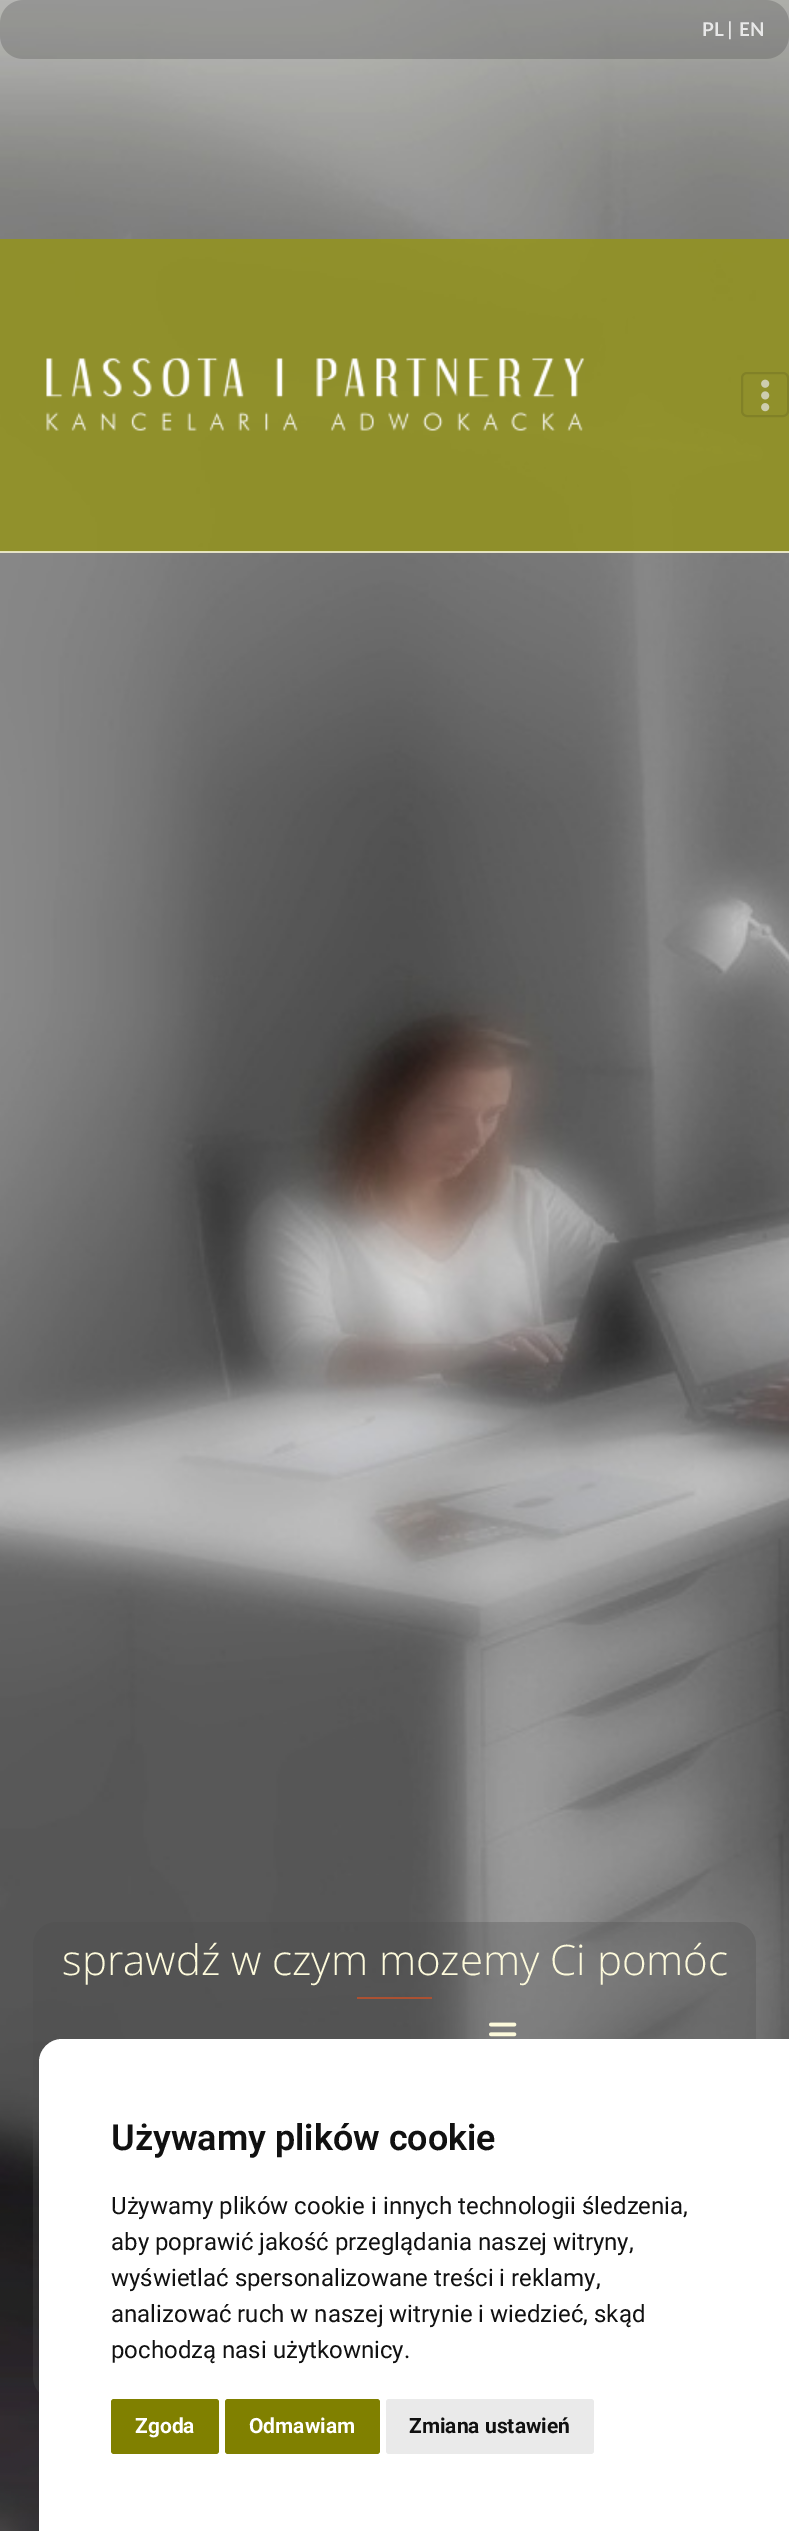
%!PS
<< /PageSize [789 2531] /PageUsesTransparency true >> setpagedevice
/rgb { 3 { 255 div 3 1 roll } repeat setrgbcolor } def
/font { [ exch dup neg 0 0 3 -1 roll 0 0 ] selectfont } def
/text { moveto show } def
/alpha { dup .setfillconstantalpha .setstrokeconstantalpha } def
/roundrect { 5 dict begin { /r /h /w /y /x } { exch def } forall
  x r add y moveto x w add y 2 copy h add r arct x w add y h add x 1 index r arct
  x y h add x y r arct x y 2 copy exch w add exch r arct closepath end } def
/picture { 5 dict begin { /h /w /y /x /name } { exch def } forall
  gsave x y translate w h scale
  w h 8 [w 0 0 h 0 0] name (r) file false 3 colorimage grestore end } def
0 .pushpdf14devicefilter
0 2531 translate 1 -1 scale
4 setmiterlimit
255 255 255 rgb
0 0 789 2531 rectfill
(img_03.rgb) 0 0 789 2531 picture
0.9 alpha
146 146 34 rgb
0 239 789 313 rectfill
0.8 alpha
253 250 219 rgb
0 551 789 2 rectfill
1 alpha
(img_01.rgb) 46 357 539 74 picture
129 129 39 rgb
2 setlinewidth
742 373 46 43 5 roundrect stroke
(img_02.rgb) 761 379 9 33 picture
171 81 50 rgb
357 1997 75 2 rectfill
(img_04.rgb) 489 2022 28 15 picture
255 255 255 rgb
62 2039 moveto 727 0 rlineto 0 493 rlineto -750 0 rlineto 0 -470 rlineto 0 -12.5 10.5 -23 23 -23 rcurveto closepath fill
128 128 0 rgb
111 2399 108 55 3 roundrect fill
225 2399 155 55 3 roundrect fill
234 234 234 rgb
386 2399 208 55 3 roundrect fill
/Lato-Bold 19 font
232 232 232 rgb
(PL |) 702 36 text
(EN) 739 36 text
/OpenSans-Light 42 font
253 250 219 rgb
(sprawdź w czym mozemy Ci pomóc) 62 1975 text
/Roboto-SemiBold 36 font
17 17 17 rgb
(Używamy plików cookie) 111 2150 text
/Roboto-Regular 24 font
(Używamy plików cookie i innych technologii śledzenia,) 111 2214 text
(aby poprawić jakość przeglądania naszej witryny,) 111 2250 text
(wyświetlać spersonalizowane treści i reklamy,) 111 2286 text
(analizować ruch w naszej witrynie i wiedzieć, skąd) 111 2322 text
(pochodzą nasi użytkownicy.) 111 2358 text
/Roboto-Bold 21 font
255 255 255 rgb
(Zgoda) 135 2433 text
(Odmawiam) 249 2433 text
17 17 17 rgb
(Zmiana ustawień) 409 2433 text
.poppdf14devicefilter showpage
